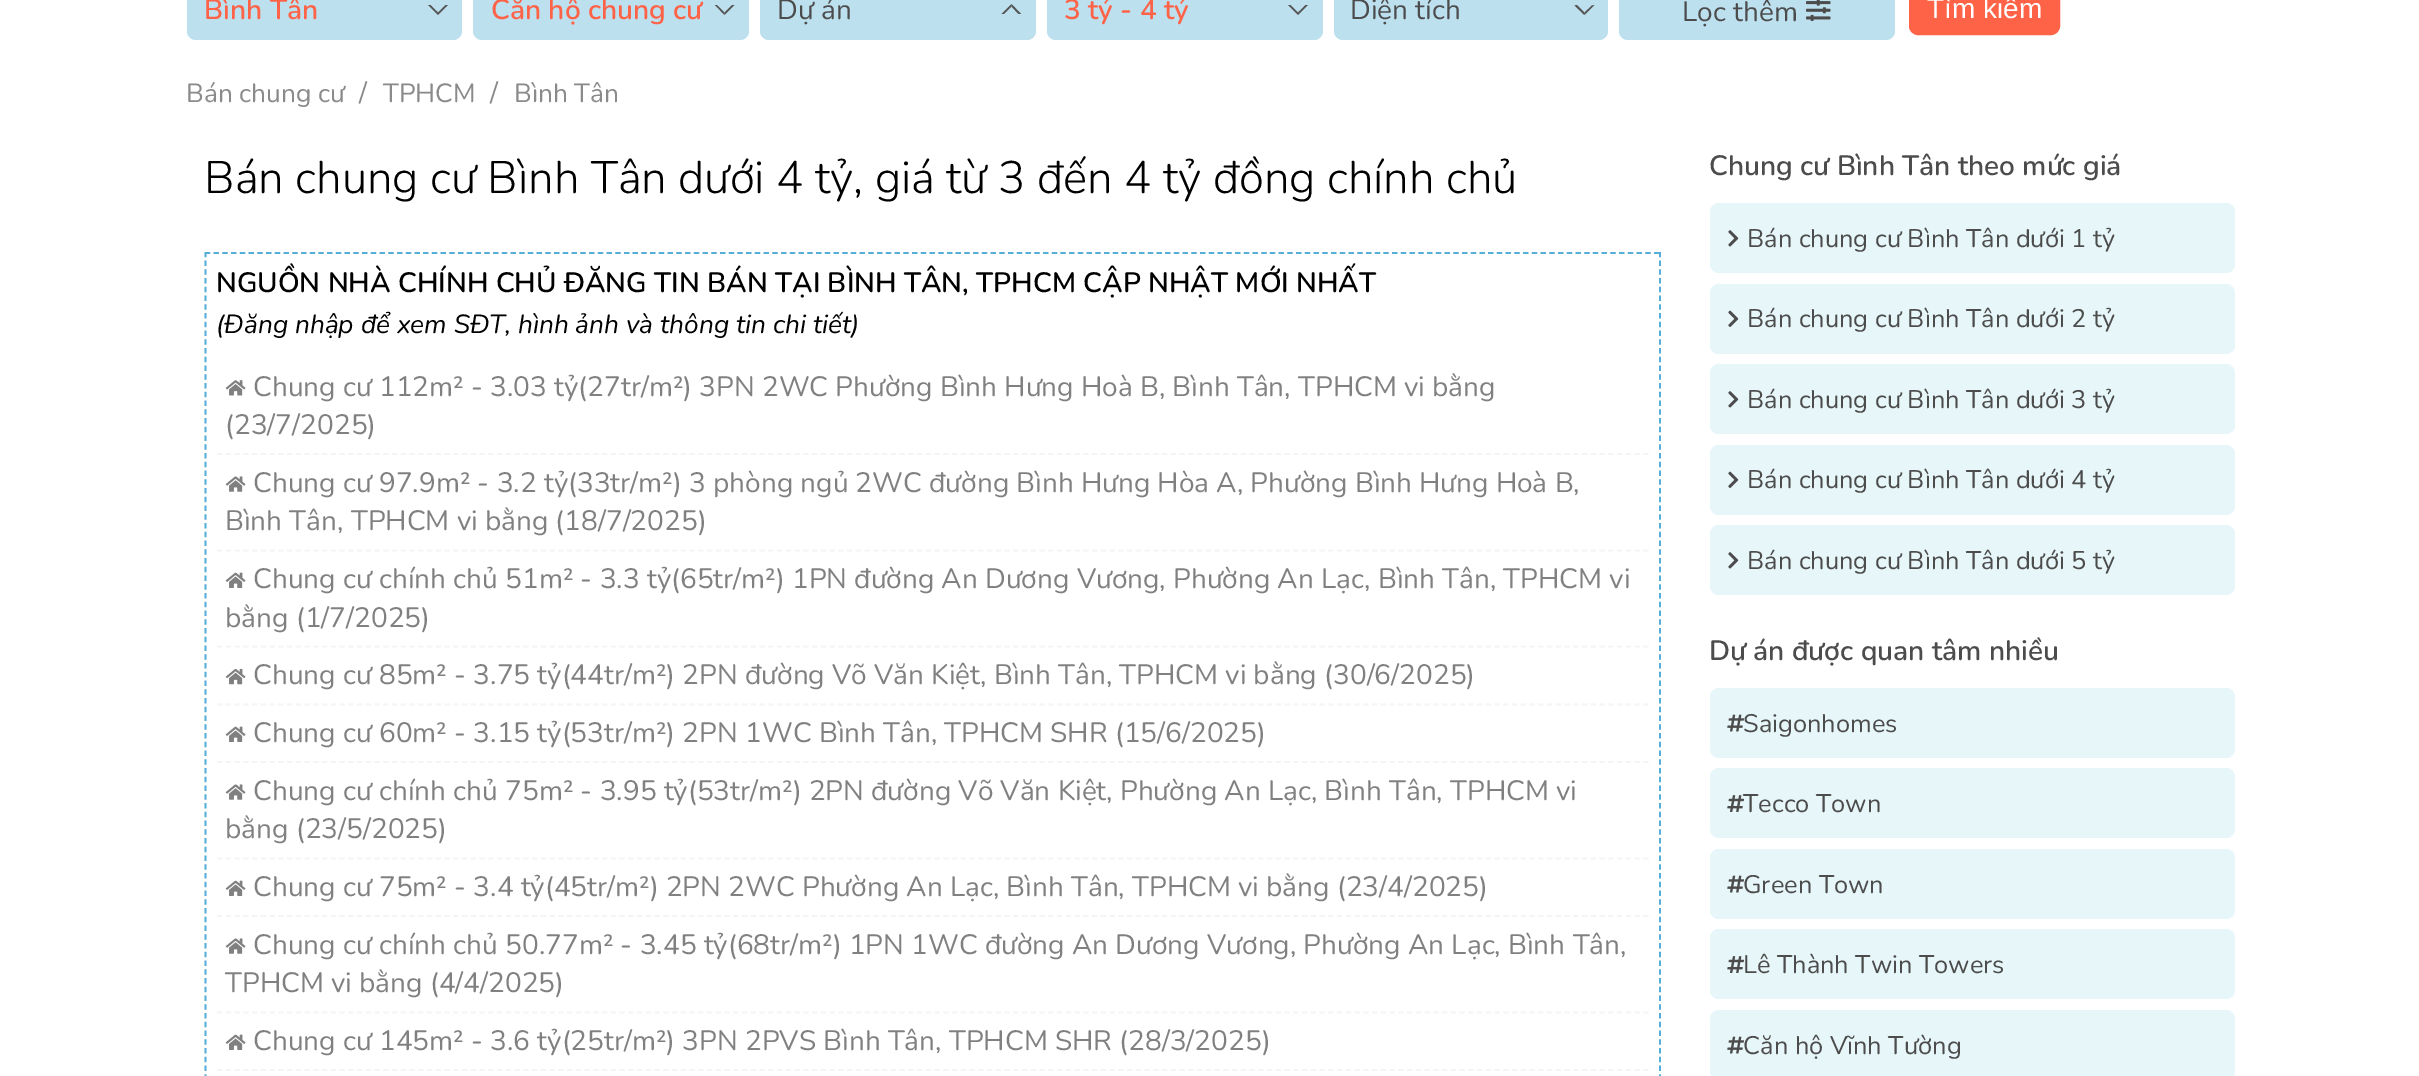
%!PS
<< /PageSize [2419 1076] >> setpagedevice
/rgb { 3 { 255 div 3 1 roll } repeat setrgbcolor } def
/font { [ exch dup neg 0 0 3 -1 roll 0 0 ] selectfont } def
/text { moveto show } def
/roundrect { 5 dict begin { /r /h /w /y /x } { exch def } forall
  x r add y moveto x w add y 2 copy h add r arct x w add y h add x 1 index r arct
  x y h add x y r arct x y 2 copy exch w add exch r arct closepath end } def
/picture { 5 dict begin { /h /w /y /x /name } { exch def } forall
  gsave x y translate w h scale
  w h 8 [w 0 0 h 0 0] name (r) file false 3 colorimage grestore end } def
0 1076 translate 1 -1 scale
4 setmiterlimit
255 255 255 rgb
0 0 2419 1076 rectfill
189 224 239 rgb
187 -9 275 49 9 roundrect fill
85 85 85 rgb
448 5 moveto -10 10 rlineto 0 -2.5 rlineto 7.5 -7.5 rlineto closepath 438 15 moveto -10 -10 rlineto 2.5 0 rlineto 7.5 7.5 rlineto closepath fill
189 224 239 rgb
473 -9 276 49 9 roundrect fill
85 85 85 rgb
734.5 5 moveto -10 10 rlineto 0 -2.5 rlineto 7.5 -7.5 rlineto closepath fill
724.5 15 moveto -9.5 -10 rlineto 2 0 rlineto 7.5 7.5 rlineto closepath fill
189 224 239 rgb
760 -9 276 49 9 roundrect fill
85 85 85 rgb
1001.5 14 moveto 10 -10 rlineto 0 2.5 rlineto -7.5 7.5 rlineto closepath fill
1011.5 4 moveto 9.5 10 rlineto -2.5 0 rlineto -7 -7.5 rlineto closepath fill
189 224 239 rgb
1047 -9 276 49 9 roundrect fill
85 85 85 rgb
1308 5 moveto -10 10 rlineto 0 -2.5 rlineto 7.5 -7.5 rlineto closepath 1298 15 moveto -10 -10 rlineto 2.5 0 rlineto 7.5 7.5 rlineto closepath fill
189 224 239 rgb
1334 -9 274 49 9 roundrect fill
85 85 85 rgb
1594.5 5 moveto -10 10 rlineto 0 -2.5 rlineto 7.5 -7 rlineto closepath fill
1584.5 15 moveto -10 -9.5 rlineto 2.5 -0.5 rlineto 7.5 7.5 rlineto closepath fill
189 224 239 rgb
1619 -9 276 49 9 roundrect fill
(img_01.rgb) 1806 0 25 21 picture
255 99 71 rgb
1910 -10 149 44 8 roundrect gsave fill grestore
2 setlinewidth
stroke
84 174 215 rgb
1.8 setlinewidth
[5.25 3.48] 0 setdash
205 253 moveto 1456 0 rlineto stroke
[5.25 3.5] 0 setdash
1660 252 moveto 0 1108 rlineto stroke
205.5 252 moveto 0 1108 rlineto stroke
245 245 245 rgb
217 454 moveto 1431.5 0 rlineto stroke
(img_02.rgb) 225 380 21 16 picture
217 550.5 moveto 1431.5 0 rlineto stroke
(img_03.rgb) 225 476 21 16 picture
217 646.5 moveto 1431.5 0 rlineto stroke
(img_04.rgb) 225 572 21 16 picture
217 704.5 moveto 1431.5 0 rlineto stroke
(img_05.rgb) 225 668 21 17 picture
217 762 moveto 1431.5 0 rlineto stroke
(img_04.rgb) 225 726 21 16 picture
217 858.5 moveto 1431.5 0 rlineto stroke
(img_03.rgb) 225 784 21 16 picture
217 916 moveto 1431.5 0 rlineto stroke
(img_04.rgb) 225 880 21 16 picture
217 1012.5 moveto 1431.5 0 rlineto stroke
(img_03.rgb) 225 938 21 16 picture
217 1070 moveto 1431.5 0 rlineto stroke
(img_04.rgb) 225 1034 21 16 picture
231 246 249 rgb
1710 203 525 70 9 roundrect fill
(img_06.rgb) 1728 230 11 17 picture
1710 284 525 70 9 roundrect fill
(img_07.rgb) 1728 310 11 17 picture
1710 364 525 70 9 roundrect fill
(img_06.rgb) 1728 391 11 17 picture
1710 445 525 70 9 roundrect fill
(img_07.rgb) 1728 471 11 17 picture
1710 525 525 70 9 roundrect fill
(img_06.rgb) 1728 552 11 17 picture
1710 688 525 70 9 roundrect fill
(img_08.rgb) 1727 714 18 18 picture
1710 768 525 70 9 roundrect fill
(img_09.rgb) 1727 795 18 17 picture
1710 849 525 70 9 roundrect fill
(img_08.rgb) 1727 875 18 18 picture
1710 929 525 70 9 roundrect fill
(img_09.rgb) 1727 956 18 17 picture
1710 1010 525 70 9 roundrect fill
(img_08.rgb) 1727 1036 18 18 picture
/Nunito-SemiBold 28 font
255 99 71 rgb
(Bình Tân) 204 19 text
(Căn hộ chung cư) 491 19 text
/Nunito-Regular 28 font
76 76 76 rgb
(Dự án) 777 19 text
/Nunito-SemiBold 28 font
255 99 71 rgb
(3 tỷ - 4 tỷ) 1064 19 text
/Nunito-Regular 28 font
76 76 76 rgb
(Diện tích) 1350 19 text
(Lọc thêm) 1682 21 text
/LiberationSans-Regular 28 font
255 255 255 rgb
(Tìm kiếm) 1927 18 text
/Nunito-Regular 26.25 font
138 138 138 rgb
(Bán chung cư) 186 102 text
/Nunito-Regular 28 font
(/) 359 102 text
/Nunito-Regular 26.25 font
(TPHCM) 383 102 text
/Nunito-Regular 28 font
(/) 490 102 text
/Nunito-Regular 26.25 font
(Bình Tân) 514 102 text
/Nunito-Light 45.5 font
0 0 0 rgb
(Bán chung cư Bình Tân dưới 4 tỷ, giá từ 3 đến 4 tỷ đồng chính chủ) 204 193 text
/Nunito-SemiBold 28 font
(NGUỒN NHÀ CHÍNH CHỦ ĐĂNG TIN BÁN TẠI BÌNH TÂN, TPHCM CẬP NHẬT MỚI NHẤT) 216 292 text
/Nunito-Italic 26.25 font
(\(Đăng nhập để xem SĐT, hình ảnh và thông tin chi tiết\)) 216 333 text
/Nunito-Regular 28 font
128 128 128 rgb
(Chung cư 112m² - 3.03 tỷ\(27tr/m²\) 3PN 2WC Phường Bình Hưng Hoà B, Bình Tân, TPHCM vi bằng) 253 396 text
(\(23/7/2025\)) 225 434 text
(Chung cư 97.9m² - 3.2 tỷ\(33tr/m²\) 3 phòng ngủ 2WC đường Bình Hưng Hòa A, Phường Bình Hưng Hoà B,) 253 492 text
(Bình Tân, TPHCM vi bằng \(18/7/2025\)) 225 530 text
(Chung cư chính chủ 51m² - 3.3 tỷ\(65tr/m²\) 1PN đường An Dương Vương, Phường An Lạc, Bình Tân, TPHCM vi) 253 588 text
(bằng \(1/7/2025\)) 225 627 text
(Chung cư 85m² - 3.75 tỷ\(44tr/m²\) 2PN đường Võ Văn Kiệt, Bình Tân, TPHCM vi bằng \(30/6/2025\)) 253 684 text
(Chung cư 60m² - 3.15 tỷ\(53tr/m²\) 2PN 1WC Bình Tân, TPHCM SHR \(15/6/2025\)) 253 742 text
(Chung cư chính chủ 75m² - 3.95 tỷ\(53tr/m²\) 2PN đường Võ Văn Kiệt, Phường An Lạc, Bình Tân, TPHCM vi) 253 800 text
(bằng \(23/5/2025\)) 225 838 text
(Chung cư 75m² - 3.4 tỷ\(45tr/m²\) 2PN 2WC Phường An Lạc, Bình Tân, TPHCM vi bằng \(23/4/2025\)) 253 896 text
(Chung cư chính chủ 50.77m² - 3.45 tỷ\(68tr/m²\) 1PN 1WC đường An Dương Vương, Phường An Lạc, Bình Tân,) 253 954 text
(TPHCM vi bằng \(4/4/2025\)) 225 992 text
(Chung cư 145m² - 3.6 tỷ\(25tr/m²\) 3PN 2PVS Bình Tân, TPHCM SHR \(28/3/2025\)) 253 1050 text
/Nunito-SemiBold 28 font
76 76 76 rgb
(Chung cư Bình Tân theo mức giá) 1709 175 text
/Nunito-Regular 25.4 font
(Bán chung cư Bình Tân dưới 1 tỷ) 1747 247 text
(Bán chung cư Bình Tân dưới 2 tỷ) 1747 327 text
(Bán chung cư Bình Tân dưới 3 tỷ) 1747 408 text
(Bán chung cư Bình Tân dưới 4 tỷ) 1747 488 text
(Bán chung cư Bình Tân dưới 5 tỷ) 1747 569 text
/Nunito-SemiBold 28 font
(Dự án được quan tâm nhiều) 1709 660 text
/Nunito-Regular 25.4 font
(Saigonhomes) 1743 732 text
(Tecco Town) 1743 812 text
(Green Town) 1743 893 text
(Lê Thành Twin Towers) 1743 973 text
(Căn hộ Vĩnh Tường) 1743 1054 text
showpage
